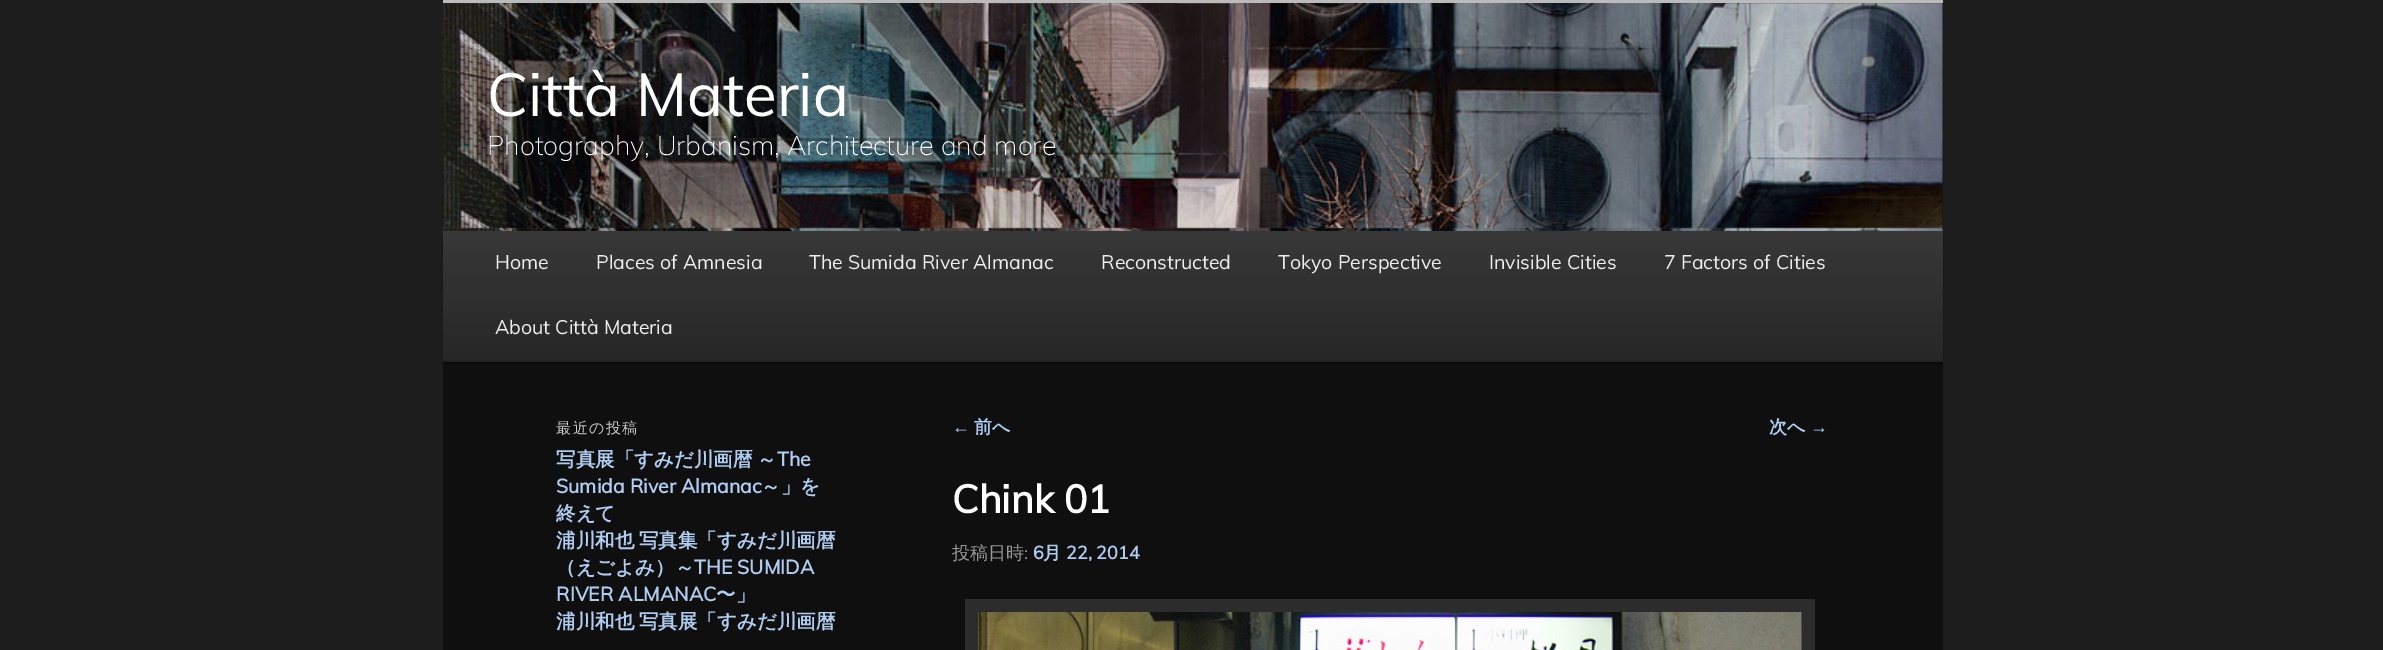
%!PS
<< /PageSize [2383 650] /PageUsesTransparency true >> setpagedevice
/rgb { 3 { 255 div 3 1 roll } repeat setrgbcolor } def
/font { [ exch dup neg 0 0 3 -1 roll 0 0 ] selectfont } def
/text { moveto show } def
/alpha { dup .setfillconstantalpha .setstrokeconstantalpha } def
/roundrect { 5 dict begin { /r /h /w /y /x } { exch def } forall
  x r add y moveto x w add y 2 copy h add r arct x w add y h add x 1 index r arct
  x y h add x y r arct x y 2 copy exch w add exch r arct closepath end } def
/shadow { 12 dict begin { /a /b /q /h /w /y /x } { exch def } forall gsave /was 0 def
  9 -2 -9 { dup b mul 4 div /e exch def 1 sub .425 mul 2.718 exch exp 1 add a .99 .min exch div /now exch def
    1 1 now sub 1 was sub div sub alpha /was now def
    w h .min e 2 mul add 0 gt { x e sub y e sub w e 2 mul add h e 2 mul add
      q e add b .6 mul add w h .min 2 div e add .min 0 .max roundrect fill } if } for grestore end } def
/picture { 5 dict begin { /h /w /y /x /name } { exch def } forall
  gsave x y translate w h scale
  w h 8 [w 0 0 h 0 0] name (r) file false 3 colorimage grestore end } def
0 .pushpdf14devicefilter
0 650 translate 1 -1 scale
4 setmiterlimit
29 29 29 rgb
0 0 2383 650 rectfill
15 15 15 rgb
443 3 1500 647 rectfill
(img_01.rgb) 442 0 1501 246 picture
187 187 187 rgb
443 0 1500 3 rectfill
0 0 0 rgb
443 233 1500 130 0 1.5 0.4 shadow
gsave 443 231 moveto 1500 0 rlineto 0 129 rlineto -1500 0 rlineto closepath clip newpath
<< /ShadingType 2 /ColorSpace /DeviceRGB /Coords [1193 231 1193 360] /Extend [true true] /Function << /FunctionType 2 /Domain [0 1] /C0 [0.22 0.22 0.22] /C1 [0.153 0.153 0.153] /N 1 >> >> shfill grestore
34 34 34 rgb
443 360 1500 2 rectfill
44 44 44 rgb
965 599 850 51 rectfill
(img_02.rgb) 978 612 824 38 picture
/Muli-Regular 60 font
255 255 255 rgb
(Città Materia) 487 116 text
/Muli-ExtraLight 27 font
(Photography, Urbanism, Architecture and more) 487 155 text
/Muli-Regular 19.5 font
238 238 238 rgb
(Home) 495 269 text
(Places of Amnesia) 596 269 text
(The Sumida River Almanac) 809 269 text
(Reconstructed) 1101 269 text
(Tokyo Perspective) 1278 269 text
(Invisible Cities) 1489 269 text
(7 Factors of Cities) 1664 269 text
(About Città Materia) 495 334 text
/WenQuanYiZenHei-Medium 15 font
204 204 204 rgb
556 433 moveto 1.5 0 (最近の投稿) ashow
/WenQuanYiZenHei-Bold 19.5 font
176 205 241 rgb
556 466 moveto -1 0 32 (写真展「すみだ川画暦 ～) widthshow
/Muli-Bold 19.5 font
(The) 777 466 text
(Sumida River Almanac) 556 493 text
/WenQuanYiZenHei-Bold 19.5 font
(～」を) 761 493 text
(終えて) 556 520 text
556 547 moveto -1 0 32 (浦川和也 写真集「すみだ川画暦) widthshow
(（えごよみ）～) 556 574 text
/Muli-Bold 19.5 font
(THE SUMIDA) 694 574 text
(RIVER ALMANAC) 556 601 text
/WenQuanYiZenHei-Bold 19.5 font
(〜」) 716 601 text
556 628 moveto -1 0 32 (浦川和也 写真展「すみだ川画暦) widthshow
/LiberationSans-Regular 18 font
(←) 952 433 text
/WenQuanYiZenHei-Bold 18 font
(前へ) 974 433 text
(次へ) 1769 433 text
/LiberationSans-Regular 18 font
(→) 1810 433 text
/Muli-Bold 39 font
255 255 255 rgb
(Chink 01) 952 513 text
/WenQuanYiZenHei-Medium 18 font
153 153 153 rgb
(投稿日時) 952 559 text
/Muli-Regular 18 font
(:) 1024 559 text
/Muli-Bold 18 font
176 205 241 rgb
(6) 1033 559 text
/WenQuanYiZenHei-Bold 18 font
(月) 1043 559 text
/Muli-Bold 18 font
(22, 2014) 1066 559 text
.poppdf14devicefilter showpage
